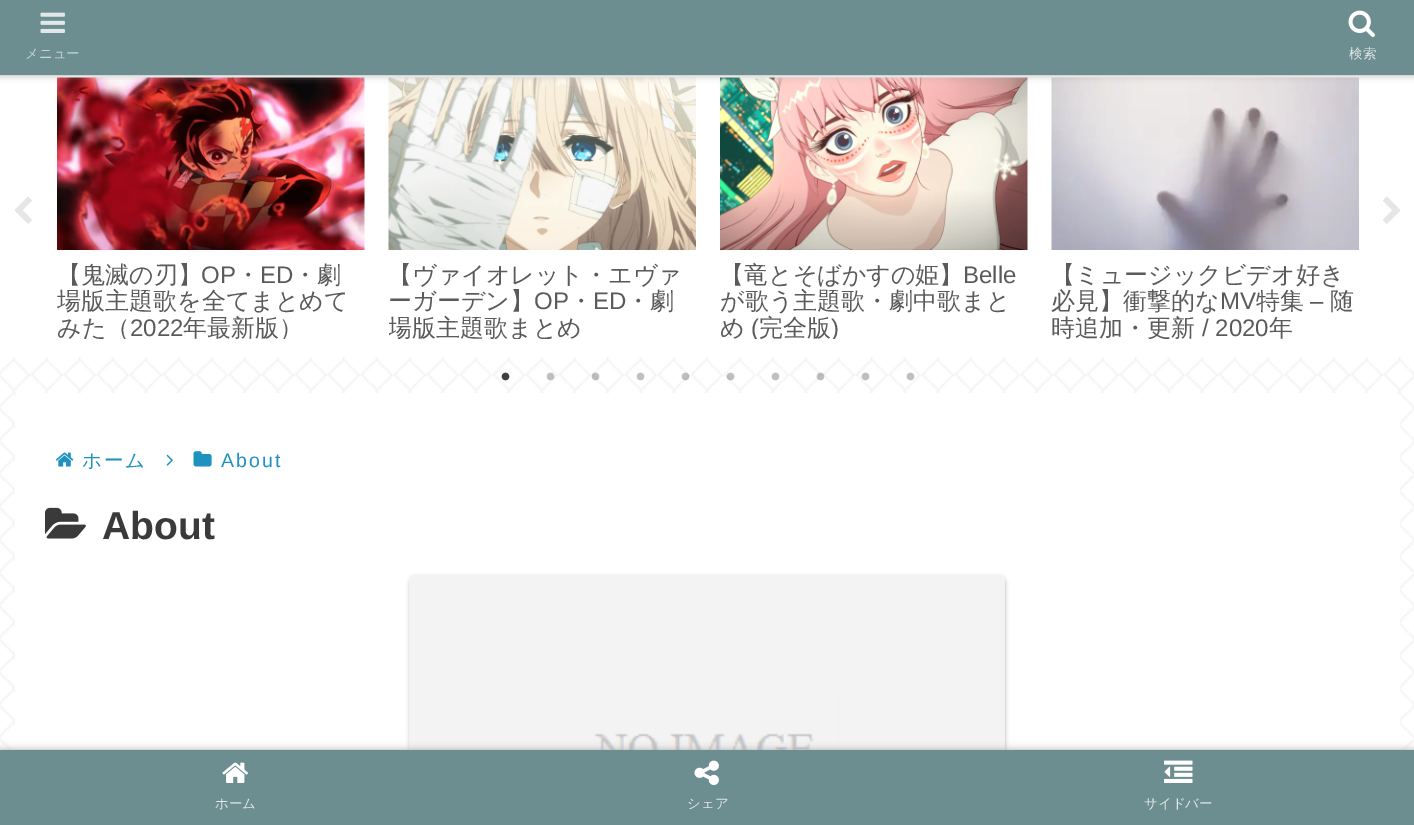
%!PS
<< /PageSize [1414 825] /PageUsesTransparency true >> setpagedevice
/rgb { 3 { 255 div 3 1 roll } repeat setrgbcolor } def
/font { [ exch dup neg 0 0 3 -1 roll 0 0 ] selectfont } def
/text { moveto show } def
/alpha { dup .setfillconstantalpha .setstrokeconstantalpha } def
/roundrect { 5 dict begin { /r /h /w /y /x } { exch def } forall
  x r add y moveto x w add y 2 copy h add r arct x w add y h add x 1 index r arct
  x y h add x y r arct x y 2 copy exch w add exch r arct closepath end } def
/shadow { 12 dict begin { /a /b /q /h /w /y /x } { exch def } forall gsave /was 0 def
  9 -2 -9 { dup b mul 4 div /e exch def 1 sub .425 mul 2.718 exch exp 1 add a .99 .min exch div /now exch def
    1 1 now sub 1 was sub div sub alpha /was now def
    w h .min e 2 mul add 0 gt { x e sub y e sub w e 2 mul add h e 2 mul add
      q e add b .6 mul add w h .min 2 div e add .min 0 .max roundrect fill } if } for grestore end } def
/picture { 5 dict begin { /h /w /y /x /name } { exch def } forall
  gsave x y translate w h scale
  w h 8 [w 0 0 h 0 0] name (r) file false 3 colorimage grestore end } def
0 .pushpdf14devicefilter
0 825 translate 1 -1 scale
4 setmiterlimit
255 255 255 rgb
0 0 1414 825 rectfill
(img_01.rgb) 0 357 1414 393 picture
(img_06.rgb) 57 77 308 173 picture
(img_07.rgb) 388 77 308 173 picture
(img_08.rgb) 720 77 308 173 picture
(img_09.rgb) 1051 77 308 173 picture
169 169 169 rgb
0 0 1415 75 0 4 1 shadow
109 142 145 rgb
0 0 1414 75 rectfill
(img_02.rgb) 40 12 25 21 picture
(img_03.rgb) 1348 10 27 27 picture
(img_04.rgb) 14 197 18 27 picture
(img_05.rgb) 1383 196 18 28 picture
(img_10.rgb) 501 372 9 9 picture
(img_11.rgb) 546 372 9 9 picture
(img_12.rgb) 591 372 9 9 picture
(img_13.rgb) 636 372 9 9 picture
(img_14.rgb) 681 372 9 9 picture
(img_15.rgb) 726 372 9 9 picture
(img_13.rgb) 771 372 9 9 picture
(img_16.rgb) 816 372 9 9 picture
(img_17.rgb) 861 372 9 9 picture
(img_18.rgb) 906 372 9 9 picture
255 255 255 rgb
15 393 1385 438 6 roundrect fill
(img_19.rgb) 55 452 19 15 picture
(img_20.rgb) 166 454 7 12 picture
(img_21.rgb) 193 451 19 16 picture
(img_22.rgb) 45 507 41 32 picture
0 0 0 rgb
410 579 595 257 5 2 0.2 shadow
410 576 595 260 5 2 0.12 shadow
(img_23.rgb) 409 575 596 175 picture
169 169 169 rgb
0 750 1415 75 0 4 1 shadow
109 142 145 rgb
0 750 1414 75 rectfill
(img_24.rgb) 222 762 26 21 picture
(img_25.rgb) 694 760 25 25 picture
(img_26.rgb) 1164 760 29 23 picture
/WenQuanYiZenHei-Medium 13.5 font
202 214 215 rgb
(メニュー) 25 58 text
226 232 233 rgb
(検索) 1349 58 text
/WenQuanYiZenHei-Medium 24 font
90 90 90 rgb
(【鬼滅の刃】) 57 283 text
/LiberationSans-Regular 24 font
(OP) 201 283 text
/WenQuanYiZenHei-Medium 24 font
(・) 236 283 text
/LiberationSans-Regular 24 font
(ED) 260 283 text
/WenQuanYiZenHei-Medium 24 font
(・劇) 293 283 text
(場版主題歌を全てまとめて) 57 309 text
gsave
57 263 308 76 rectclip
(みた（) 57 336 text
grestore
/LiberationSans-Regular 24 font
(2022) 130 336 text
gsave
57 263 308 76 rectclip
/WenQuanYiZenHei-Medium 24 font
(年最新版）) 183 336 text
grestore
/WenQuanYiZenHei-Medium 24 font
(【ヴァイオレット・エヴァ) 388 283 text
(ーガーデン】) 388 309 text
/LiberationSans-Regular 24 font
(OP) 534 309 text
/WenQuanYiZenHei-Medium 24 font
(・) 569 309 text
/LiberationSans-Regular 24 font
(ED) 593 309 text
/WenQuanYiZenHei-Medium 24 font
(・劇) 626 309 text
gsave
389 263 307 76 rectclip
(場版主題歌まとめ) 388 336 text
grestore
(【竜とそばかすの姫】) 720 283 text
/LiberationSans-Regular 24 font
(Belle) 963 283 text
/WenQuanYiZenHei-Medium 24 font
(が歌う主題歌・劇中歌まと) 720 309 text
(め) 720 336 text
gsave
720 263 308 76 rectclip
/LiberationSans-Regular 24 font
(\() 751 336 text
grestore
(完全版) 759 336 text
gsave
720 263 308 76 rectclip
/LiberationSans-Regular 24 font
(\)) 831 336 text
grestore
(【ミュージックビデオ好き) 1051 283 text
(必見】衝撃的な) 1051 309 text
/LiberationSans-Regular 24 font
(MV) 1220 309 text
/WenQuanYiZenHei-Medium 24 font
(特集) 1256 309 text
/LiberationSans-Regular 24 font
(–) 1310 309 text
/WenQuanYiZenHei-Medium 24 font
(随) 1330 309 text
(時追加・更新) 1051 336 text
/LiberationSans-Regular 24 font
(/ 2020) 1202 336 text
/WenQuanYiZenHei-Medium 24 font
(年) 1269 336 text
/WenQuanYiZenHei-Medium 19.5 font
30 146 191 rgb
82 467 moveto 2 0 (ホーム) ashow
/LiberationSans-Regular 19.5 font
221 467 moveto 2 0 (About) ashow
/LiberationSans-Bold 39 font
58 58 58 rgb
(About) 102 539 text
/WenQuanYiZenHei-Medium 13.5 font
226 232 233 rgb
(ホーム) 215 808 text
(シェア) 687 808 text
(サイドバー) 1144 808 text
.poppdf14devicefilter showpage
